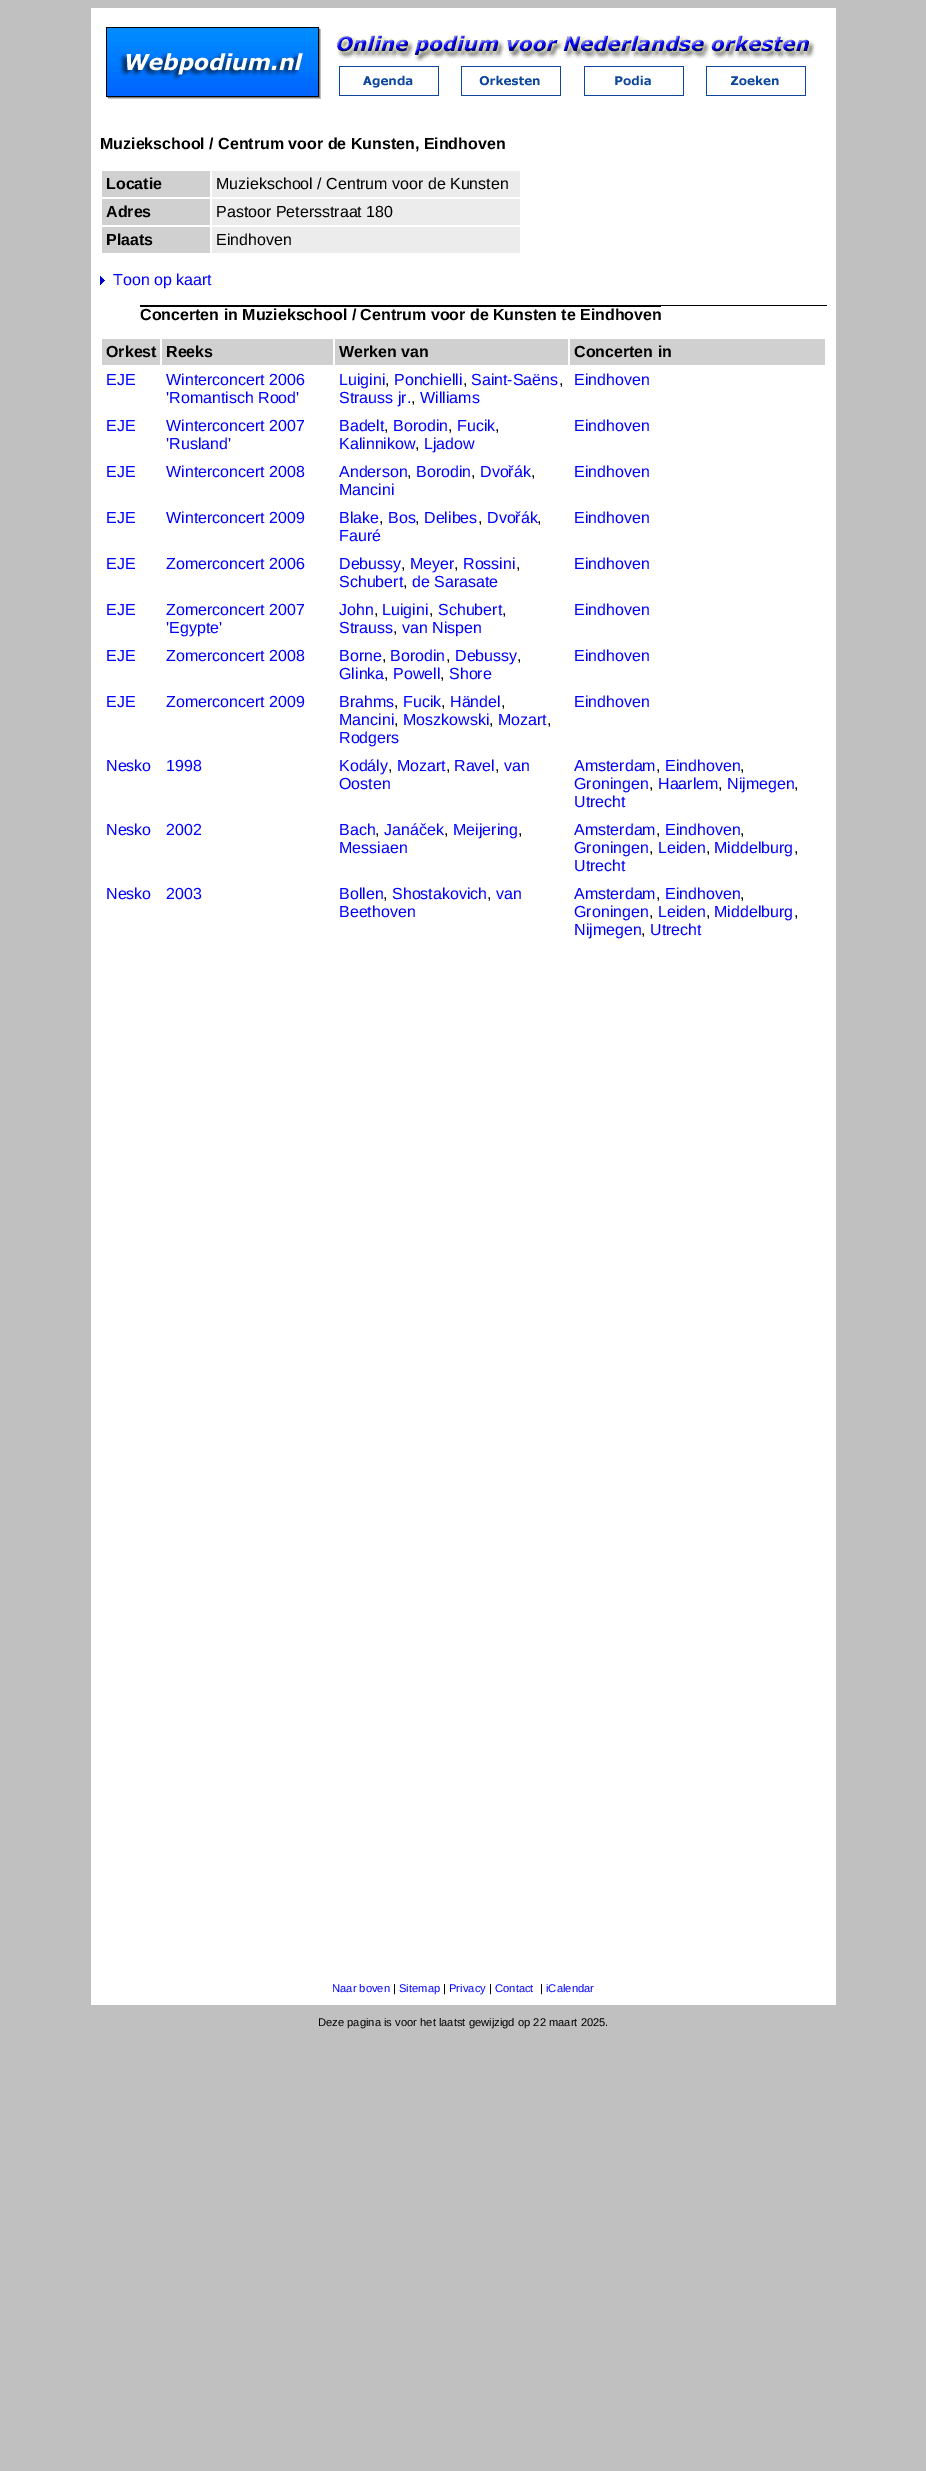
%!PS
<< /PageSize [926 2471] >> setpagedevice
/rgb { 3 { 255 div 3 1 roll } repeat setrgbcolor } def
/font { [ exch dup neg 0 0 3 -1 roll 0 0 ] selectfont } def
/text { moveto show } def
/picture { 5 dict begin { /h /w /y /x /name } { exch def } forall
  gsave x y translate w h scale
  w h 8 [w 0 0 h 0 0] name (r) file false 3 colorimage grestore end } def
0 2471 translate 1 -1 scale
4 setmiterlimit
192 192 192 rgb
0 0 926 2471 rectfill
255 255 255 rgb
91 8 745 1997 rectfill
(img_01.rgb) 106 27 215 72 picture
(img_02.rgb) 336 35 480 27 picture
(img_03.rgb) 339 66 100 30 picture
(img_04.rgb) 461 66 100 30 picture
(img_05.rgb) 584 66 100 30 picture
(img_06.rgb) 706 66 100 30 picture
208 208 208 rgb
102 171 108 26 rectfill
236 236 236 rgb
212 171 308 26 rectfill
208 208 208 rgb
102 199 108 26 rectfill
236 236 236 rgb
212 199 308 26 rectfill
208 208 208 rgb
102 227 108 26 rectfill
236 236 236 rgb
212 227 308 26 rectfill
(img_07.rgb) 100 276 5 9 picture
0 0 0 rgb
140 305 687 1 rectfill
140 306 521 1 rectfill
208 208 208 rgb
102 339 58 26 rectfill
162 339 171 26 rectfill
335 339 233 26 rectfill
570 339 255 26 rectfill
/LiberationSans-Bold 16 font
0 0 0 rgb
(Muziekschool / Centrum voor de Kunsten, Eindhoven) 100 149 text
(Locatie) 106 189 text
/LiberationSans-Regular 16 font
(Muziekschool / Centrum voor de Kunsten) 216 189 text
/LiberationSans-Bold 16 font
(Adres) 106 217 text
/LiberationSans-Regular 16 font
(Pastoor Petersstraat 180) 216 217 text
/LiberationSans-Bold 16 font
(Plaats) 106 245 text
/LiberationSans-Regular 16 font
(Eindhoven) 216 245 text
0 0 255 rgb
(Toon op kaart) 113 285 text
/LiberationSans-Bold 16 font
0 0 0 rgb
(Concerten in Muziekschool / Centrum voor de Kunsten te Eindhoven) 140 320 text
(Orkest) 106 357 text
(Reeks) 166 357 text
(Werken van) 339 357 text
(Concerten in) 574 357 text
/LiberationSans-Regular 16 font
0 0 255 rgb
(EJE) 106 385 text
(Winterconcert 2006) 166 385 text
('Romantisch Rood') 166 403 text
(Luigini) 339 385 text
0 0 0 rgb
(,) 385 385 text
0 0 255 rgb
(Ponchielli) 394 385 text
0 0 0 rgb
(,) 463 385 text
0 0 255 rgb
(Saint-Saëns) 471 385 text
0 0 0 rgb
(,) 559 385 text
0 0 255 rgb
(Strauss jr.) 339 403 text
0 0 0 rgb
(,) 411 403 text
0 0 255 rgb
(Williams) 420 403 text
(Eindhoven) 574 385 text
(EJE) 106 431 text
(Winterconcert 2007) 166 431 text
('Rusland') 166 449 text
(Badelt) 339 431 text
0 0 0 rgb
(,) 384 431 text
0 0 255 rgb
(Borodin) 393 431 text
0 0 0 rgb
(,) 448 431 text
0 0 255 rgb
(Fucik) 457 431 text
0 0 0 rgb
(,) 495 431 text
0 0 255 rgb
(Kalinnikow) 339 449 text
0 0 0 rgb
(,) 415 449 text
0 0 255 rgb
(Ljadow) 424 449 text
(Eindhoven) 574 431 text
(EJE) 106 477 text
(Winterconcert 2008) 166 477 text
(Anderson) 339 477 text
0 0 0 rgb
(,) 407 477 text
0 0 255 rgb
(Borodin) 416 477 text
0 0 0 rgb
(,) 471 477 text
0 0 255 rgb
(Dvořák) 480 477 text
0 0 0 rgb
(,) 531 477 text
0 0 255 rgb
(Mancini) 339 495 text
(Eindhoven) 574 477 text
(EJE) 106 523 text
(Winterconcert 2009) 166 523 text
(Blake) 339 523 text
0 0 0 rgb
(,) 379 523 text
0 0 255 rgb
(Bos) 388 523 text
0 0 0 rgb
(,) 415 523 text
0 0 255 rgb
(Delibes) 424 523 text
0 0 0 rgb
(,) 478 523 text
0 0 255 rgb
(Dvořák) 487 523 text
0 0 0 rgb
(,) 537 523 text
0 0 255 rgb
(Fauré) 339 541 text
(Eindhoven) 574 523 text
(EJE) 106 569 text
(Zomerconcert 2006) 166 569 text
(Debussy) 339 569 text
0 0 0 rgb
(,) 401 569 text
0 0 255 rgb
(Meyer) 410 569 text
0 0 0 rgb
(,) 454 569 text
0 0 255 rgb
(Rossini) 463 569 text
0 0 0 rgb
(,) 516 569 text
0 0 255 rgb
(Schubert) 339 587 text
0 0 0 rgb
(,) 403 587 text
0 0 255 rgb
(de Sarasate) 412 587 text
(Eindhoven) 574 569 text
(EJE) 106 615 text
(Zomerconcert 2007) 166 615 text
('Egypte') 166 633 text
(John) 339 615 text
0 0 0 rgb
(,) 374 615 text
0 0 255 rgb
(Luigini) 382 615 text
0 0 0 rgb
(,) 429 615 text
0 0 255 rgb
(Schubert) 438 615 text
0 0 0 rgb
(,) 502 615 text
0 0 255 rgb
(Strauss) 339 633 text
0 0 0 rgb
(,) 393 633 text
0 0 255 rgb
(van Nispen) 402 633 text
(Eindhoven) 574 615 text
(EJE) 106 661 text
(Zomerconcert 2008) 166 661 text
(Borne) 339 661 text
0 0 0 rgb
(,) 382 661 text
0 0 255 rgb
(Borodin) 390 661 text
0 0 0 rgb
(,) 446 661 text
0 0 255 rgb
(Debussy) 455 661 text
0 0 0 rgb
(,) 517 661 text
0 0 255 rgb
(Glinka) 339 679 text
0 0 0 rgb
(,) 384 679 text
0 0 255 rgb
(Powell) 393 679 text
0 0 0 rgb
(,) 440 679 text
0 0 255 rgb
(Shore) 449 679 text
(Eindhoven) 574 661 text
(EJE) 106 707 text
(Zomerconcert 2009) 166 707 text
(Brahms) 339 707 text
0 0 0 rgb
(,) 394 707 text
0 0 255 rgb
(Fucik) 403 707 text
0 0 0 rgb
(,) 441 707 text
0 0 255 rgb
(Händel) 450 707 text
0 0 0 rgb
(,) 501 707 text
0 0 255 rgb
(Mancini) 339 725 text
0 0 0 rgb
(,) 394 725 text
0 0 255 rgb
(Moszkowski) 403 725 text
0 0 0 rgb
(,) 489 725 text
0 0 255 rgb
(Mozart) 498 725 text
0 0 0 rgb
(,) 547 725 text
0 0 255 rgb
(Rodgers) 339 743 text
(Eindhoven) 574 707 text
(Nesko) 106 771 text
(1998) 166 771 text
(Kodály) 339 771 text
0 0 0 rgb
(,) 388 771 text
0 0 255 rgb
(Mozart) 397 771 text
0 0 0 rgb
(,) 446 771 text
0 0 255 rgb
(Ravel) 454 771 text
0 0 0 rgb
(,) 495 771 text
0 0 255 rgb
(van) 504 771 text
(Oosten) 339 789 text
(Amsterdam) 574 771 text
0 0 0 rgb
(,) 656 771 text
0 0 255 rgb
(Eindhoven) 665 771 text
0 0 0 rgb
(,) 740 771 text
0 0 255 rgb
(Groningen) 574 789 text
0 0 0 rgb
(,) 649 789 text
0 0 255 rgb
(Haarlem) 658 789 text
0 0 0 rgb
(,) 718 789 text
0 0 255 rgb
(Nijmegen) 727 789 text
0 0 0 rgb
(,) 794 789 text
0 0 255 rgb
(Utrecht) 574 807 text
(Nesko) 106 835 text
(2002) 166 835 text
(Bach) 339 835 text
0 0 0 rgb
(,) 375 835 text
0 0 255 rgb
(Janáček) 384 835 text
0 0 0 rgb
(,) 444 835 text
0 0 255 rgb
(Meijering) 453 835 text
0 0 0 rgb
(,) 518 835 text
0 0 255 rgb
(Messiaen) 339 853 text
(Amsterdam) 574 835 text
0 0 0 rgb
(,) 656 835 text
0 0 255 rgb
(Eindhoven) 665 835 text
0 0 0 rgb
(,) 740 835 text
0 0 255 rgb
(Groningen) 574 853 text
0 0 0 rgb
(,) 649 853 text
0 0 255 rgb
(Leiden) 658 853 text
0 0 0 rgb
(,) 706 853 text
0 0 255 rgb
(Middelburg) 714 853 text
0 0 0 rgb
(,) 794 853 text
0 0 255 rgb
(Utrecht) 574 871 text
(Nesko) 106 899 text
(2003) 166 899 text
(Bollen) 339 899 text
0 0 0 rgb
(,) 383 899 text
0 0 255 rgb
(Shostakovich) 392 899 text
0 0 0 rgb
(,) 487 899 text
0 0 255 rgb
(van) 496 899 text
(Beethoven) 339 917 text
(Amsterdam) 574 899 text
0 0 0 rgb
(,) 656 899 text
0 0 255 rgb
(Eindhoven) 665 899 text
0 0 0 rgb
(,) 740 899 text
0 0 255 rgb
(Groningen) 574 917 text
0 0 0 rgb
(,) 649 917 text
0 0 255 rgb
(Leiden) 658 917 text
0 0 0 rgb
(,) 706 917 text
0 0 255 rgb
(Middelburg) 714 917 text
0 0 0 rgb
(,) 794 917 text
0 0 255 rgb
(Nijmegen) 574 935 text
0 0 0 rgb
(,) 641 935 text
0 0 255 rgb
(Utrecht) 650 935 text
/LiberationSans-Regular 11.2 font
(Naar boven) 332 1992 text
0 0 0 rgb
(|) 393 1992 text
0 0 255 rgb
(Sitemap) 399 1992 text
0 0 0 rgb
(|) 443 1992 text
0 0 255 rgb
(Privacy) 449 1992 text
0 0 0 rgb
(|) 489 1992 text
0 0 255 rgb
(Contact) 495 1992 text
0 0 0 rgb
(|) 540 1992 text
0 0 255 rgb
(iCalendar) 546 1992 text
0 0 0 rgb
(Deze pagina is voor het laatst gewijzigd op 22 maart 2025.) 318 2026 text
showpage
